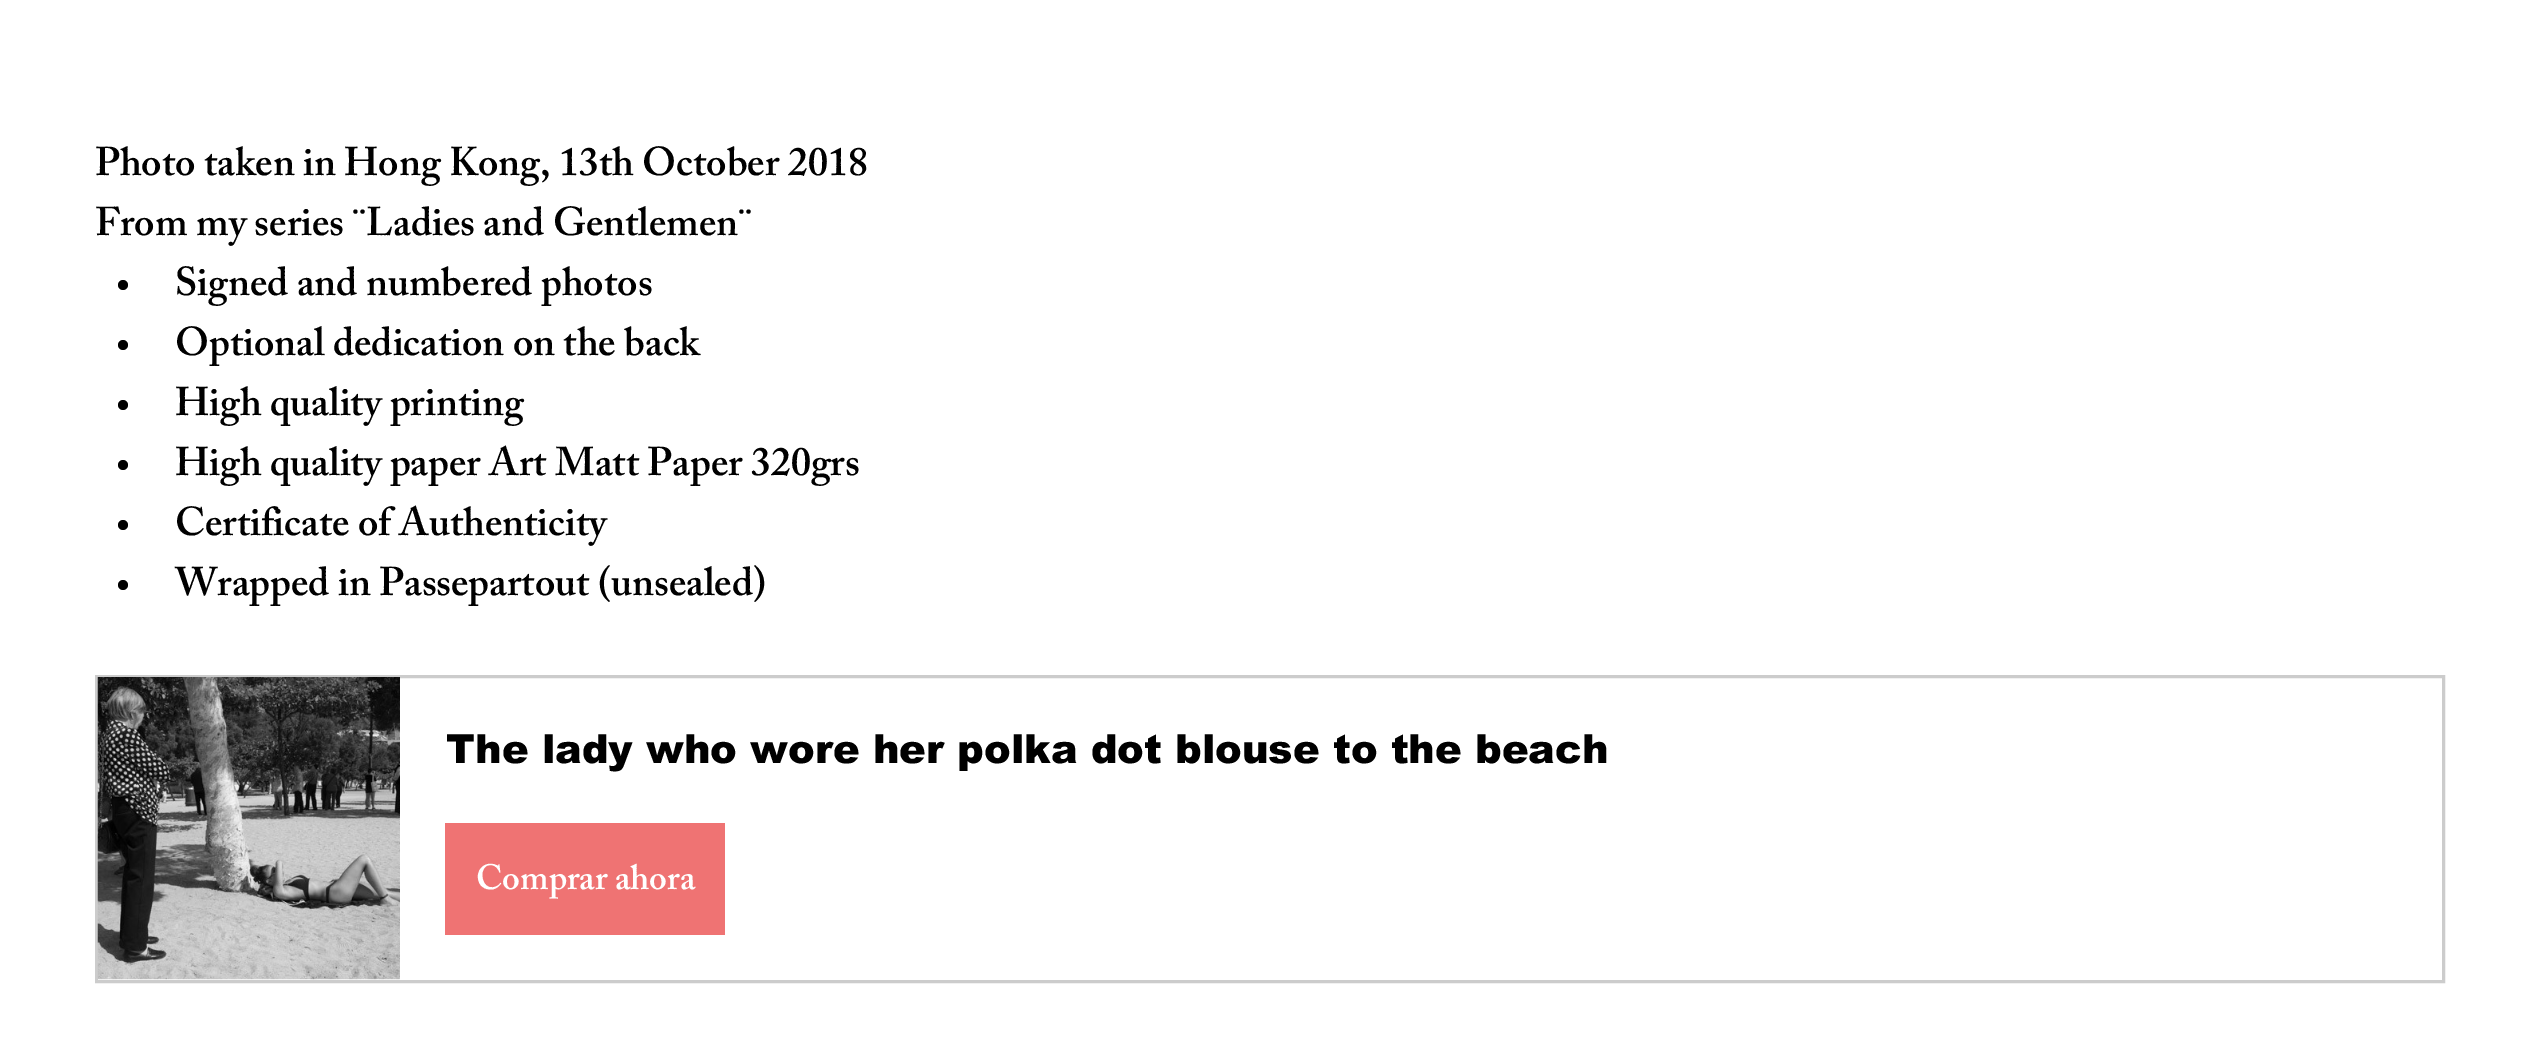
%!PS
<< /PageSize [2538 1048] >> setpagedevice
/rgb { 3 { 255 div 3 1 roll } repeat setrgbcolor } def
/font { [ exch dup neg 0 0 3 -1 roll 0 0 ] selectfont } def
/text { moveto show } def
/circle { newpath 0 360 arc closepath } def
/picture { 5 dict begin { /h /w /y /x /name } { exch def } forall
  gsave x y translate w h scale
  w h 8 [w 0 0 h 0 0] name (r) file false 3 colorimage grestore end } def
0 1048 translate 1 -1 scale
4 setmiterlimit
255 255 255 rgb
0 0 2538 1048 rectfill
0 0 0 rgb
123 285 5 circle fill
123 345 5 circle fill
123 405 5 circle fill
123 465 5 circle fill
123 525 5 circle fill
123 585 5 circle fill
204 204 204 rgb
3 setlinewidth
96.5 676.5 2347 305 rectstroke
(img_01.rgb) 97 677 303 303 picture
239 115 115 rgb
445 823 280 112 rectfill
/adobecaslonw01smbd-SemiBold 40 font
0 0 0 rgb
(Photo taken in Hong Kong, 13th October 2018) 95 175 text
(From my series ¨Ladies and Gentlemen¨) 95 235 text
(Signed and numbered photos) 175 295 text
(Optional dedication on the back) 175 355 text
(High quality printing) 175 415 text
(High quality paper Art Matt Paper 320grs) 175 475 text
(Certificate of Authenticity) 175 535 text
(Wrapped in Passepartout \(unsealed\)) 175 595 text
/arial-Black 40 font
(The lady who wore her polka dot blouse to the beach) 446 763 text
/adobecaslonw01smbd-SemiBold 35 font
255 255 255 rgb
(Comprar ahora) 476 889 text
showpage
